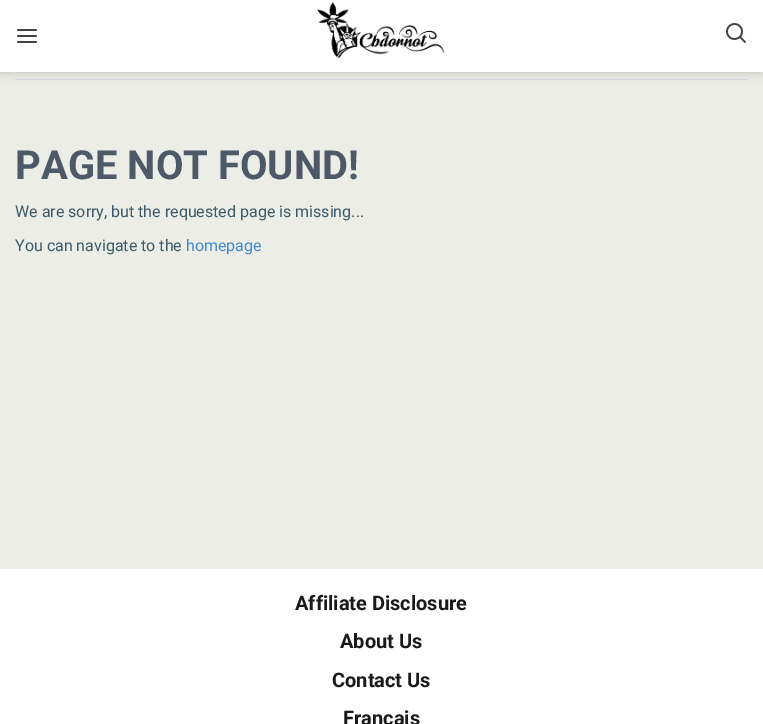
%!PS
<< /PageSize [763 724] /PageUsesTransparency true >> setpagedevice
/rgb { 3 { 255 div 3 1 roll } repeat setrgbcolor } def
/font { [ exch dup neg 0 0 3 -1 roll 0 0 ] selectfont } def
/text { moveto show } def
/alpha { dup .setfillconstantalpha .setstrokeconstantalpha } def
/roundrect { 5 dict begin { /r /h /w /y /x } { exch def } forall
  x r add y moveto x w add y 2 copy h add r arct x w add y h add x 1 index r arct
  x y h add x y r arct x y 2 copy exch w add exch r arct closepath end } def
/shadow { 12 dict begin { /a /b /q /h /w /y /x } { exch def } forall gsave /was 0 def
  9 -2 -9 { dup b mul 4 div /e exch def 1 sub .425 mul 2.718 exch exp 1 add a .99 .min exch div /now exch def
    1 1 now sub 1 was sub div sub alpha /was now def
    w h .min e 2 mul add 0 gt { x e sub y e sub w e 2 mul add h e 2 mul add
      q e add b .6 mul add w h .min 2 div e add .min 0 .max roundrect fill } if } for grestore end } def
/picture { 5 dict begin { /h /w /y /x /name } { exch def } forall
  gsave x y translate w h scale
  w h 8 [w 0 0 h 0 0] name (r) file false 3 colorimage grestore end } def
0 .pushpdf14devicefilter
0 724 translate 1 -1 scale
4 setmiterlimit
236 237 230 rgb
0 0 763 724 rectfill
209 219 225 rgb
15 79 733 1 rectfill
0 0 0 rgb
0 0 763 72 0 5 0.2 shadow
255 255 255 rgb
0 0 763 72 rectfill
(img_01.rgb) 17 29 20 14 picture
(img_02.rgb) 317 1 128 57 picture
(img_03.rgb) 726 23 20 20 picture
0 569 763 155 rectfill
/Roboto-Bold 40 font
78 89 104 rgb
(PAGE NOT FOUND!) 15 179 text
/Roboto-Regular 16 font
60 91 104 rgb
(We are sorry, but the requested page is missing...) 15 217 text
(You can navigate to the) 15 251 text
66 139 202 rgb
(homepage) 186 251 text
/Roboto-Bold 20 font
26 26 26 rgb
(Affiliate Disclosure) 295 610 text
(About Us) 340 648 text
(Contact Us) 332 687 text
(Français) 343 725 text
.poppdf14devicefilter showpage
